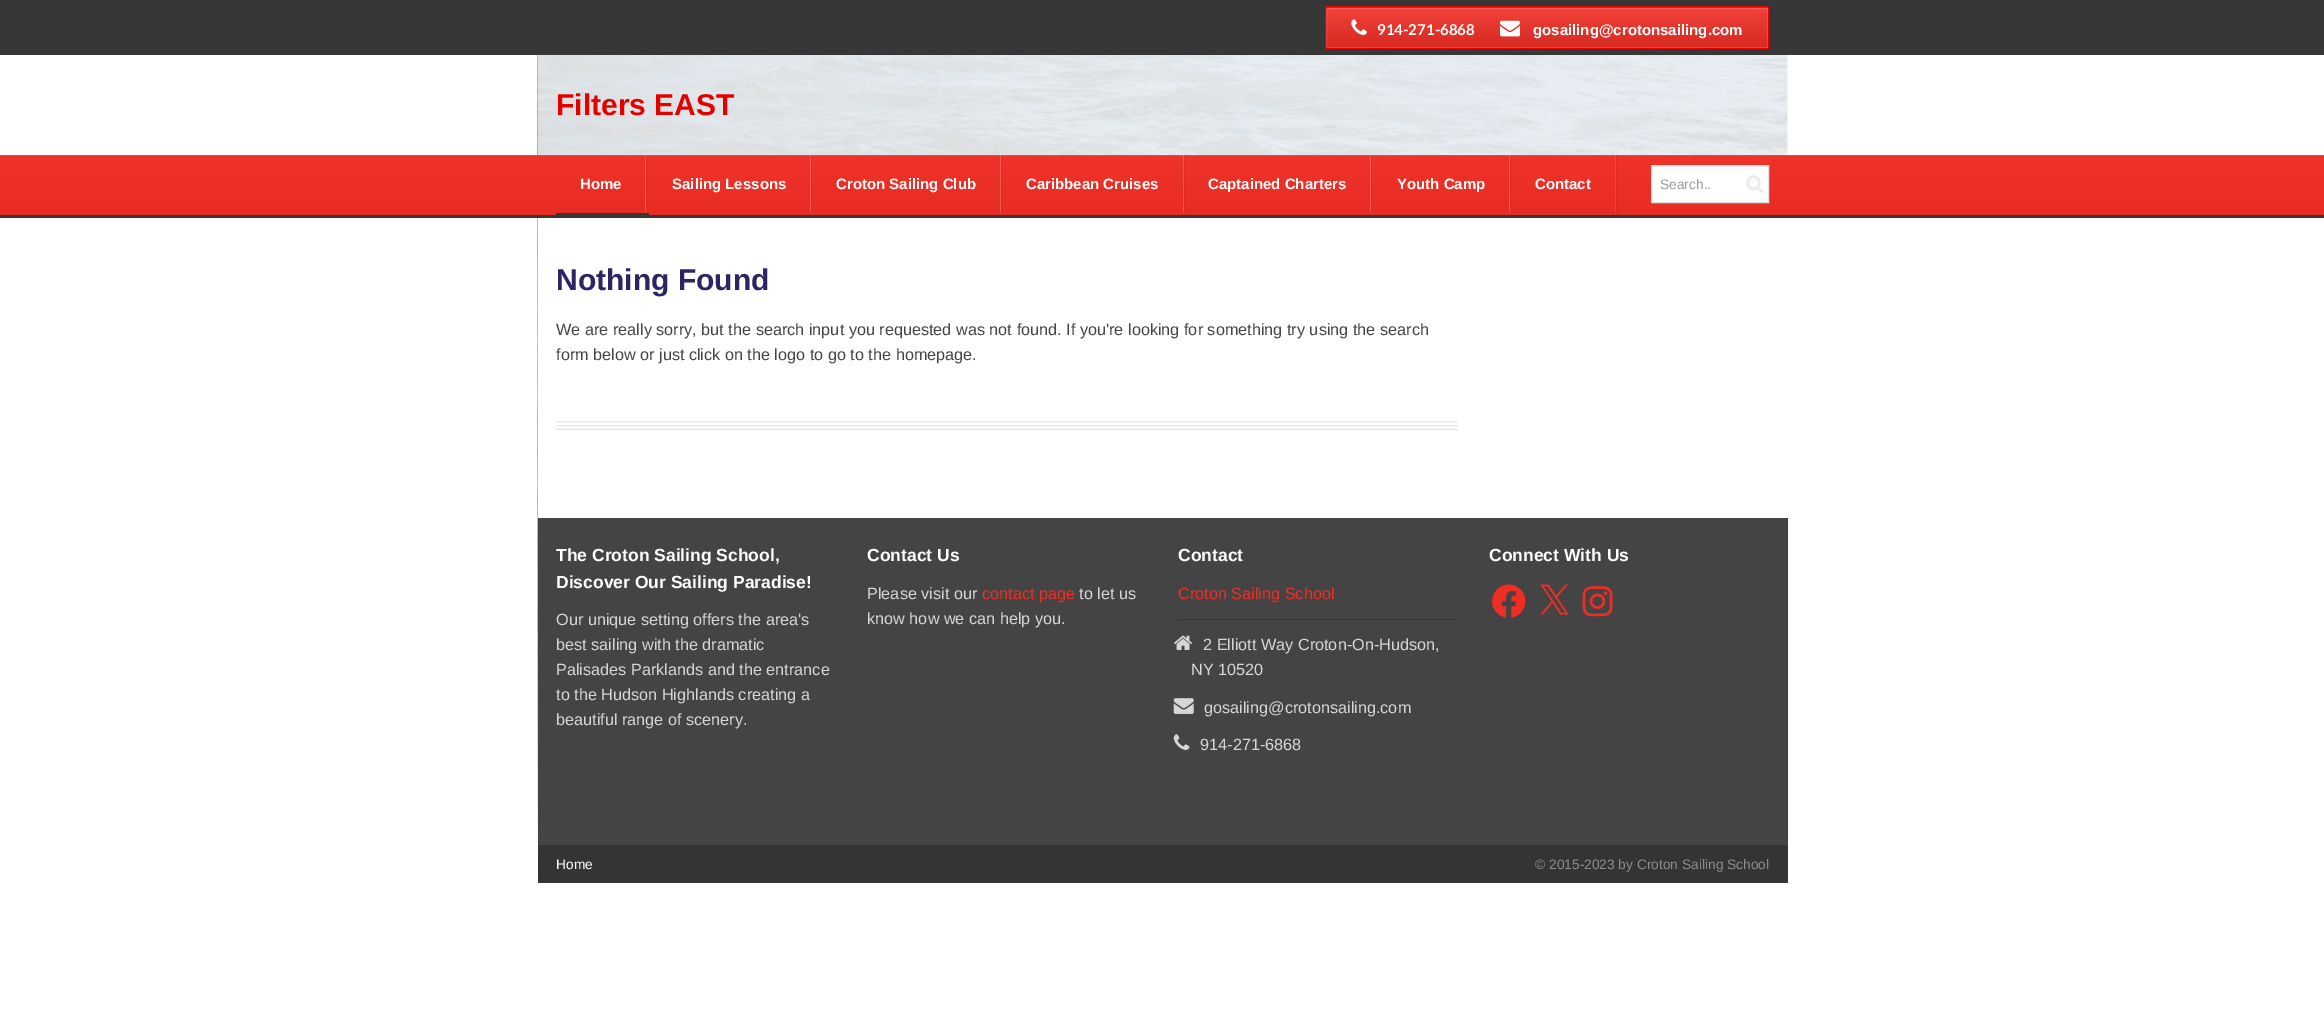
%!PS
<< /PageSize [2324 1024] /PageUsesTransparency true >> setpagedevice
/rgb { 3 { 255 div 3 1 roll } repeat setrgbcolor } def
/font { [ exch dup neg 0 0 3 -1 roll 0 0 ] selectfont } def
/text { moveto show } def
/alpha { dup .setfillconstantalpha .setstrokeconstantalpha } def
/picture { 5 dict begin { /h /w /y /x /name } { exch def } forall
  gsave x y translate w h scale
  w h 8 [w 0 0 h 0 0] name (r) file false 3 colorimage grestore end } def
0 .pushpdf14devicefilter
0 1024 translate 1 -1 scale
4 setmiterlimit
255 255 255 rgb
0 0 2324 1024 rectfill
(img_01.rgb) 537 55 1251 819 picture
55 55 55 rgb
0 0 2324 55 rectfill
gsave 1325 7 moveto 444 0 rlineto 0 1 rlineto -444 0 rlineto closepath clip newpath
<< /ShadingType 2 /ColorSpace /DeviceRGB /Coords [1547 7.5 1547 -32] /Extend [true true] /Function << /FunctionType 2 /Domain [0 1] /C0 [0.839 0.161 0.125] /C1 [0.941 0.259 0.227] /N 1 >> >> shfill grestore
gsave 1326 8 moveto 442 0 rlineto 0 40 rlineto -442 0 rlineto closepath clip newpath
<< /ShadingType 2 /ColorSpace /DeviceRGB /Coords [1547 48 1547 7.5] /Extend [true true] /Function << /FunctionType 2 /Domain [0 1] /C0 [0.839 0.161 0.125] /C1 [0.941 0.259 0.227] /N 1 >> >> shfill grestore
0.15 alpha
255 255 255 rgb
1326.5 8.5 441 39 rectstroke
1 alpha
229 0 0 rgb
1325.5 6.5 443 42 rectstroke
(img_02.rgb) 1351 19 16 16 picture
(img_03.rgb) 1500 20 20 17 picture
0.8 alpha
255 255 255 rgb
538 55 1250 100 rectfill
1 alpha
gsave 0 156 moveto 2324 0 rlineto 0 59 rlineto -2324 0 rlineto closepath clip newpath
<< /ShadingType 2 /ColorSpace /DeviceRGB /Coords [1163 215 1163 155] /Extend [true true] /Function << /FunctionType 2 /Domain [0 1] /C0 [0.906 0.173 0.137] /C1 [0.937 0.2 0.169] /N 1 >> >> shfill grestore
240 67 60 rgb
0 155 2324 1 rectfill
55 55 55 rgb
0 215 2324 3 rectfill
0.2 alpha
255 255 255 rgb
645 155 1 58 rectfill
810 155 1 58 rectfill
0.05 alpha
0 0 0 rgb
646 155 1 58 rectfill
0.2 alpha
255 255 255 rgb
1000 155 1 58 rectfill
0.05 alpha
0 0 0 rgb
811 155 1 58 rectfill
0.2 alpha
255 255 255 rgb
1183 155 1 58 rectfill
0.05 alpha
0 0 0 rgb
1001 155 1 58 rectfill
0.2 alpha
255 255 255 rgb
1370 155 1 58 rectfill
0.05 alpha
0 0 0 rgb
1184 155 1 58 rectfill
0.2 alpha
255 255 255 rgb
1509 155 1 58 rectfill
0.05 alpha
0 0 0 rgb
1371 155 1 58 rectfill
1511 212 moveto 0 1 rlineto 107 0 rlineto 0 -58 rlineto -2 0 rlineto 0 57 rlineto closepath fill
0.1 alpha
255 255 255 rgb
1615 155 1 58 rectfill
0.05 alpha
0 0 0 rgb
1510 155 1 58 rectfill
1 alpha
55 55 55 rgb
556 213 93 2 rectfill
255 255 255 rgb
1652 166 116 36 rectfill
(img_04.rgb) 1746 175 18 19 picture
236 236 236 rgb
1653 166 115 1 rectfill
226 226 226 rgb
1651.5 165.5 117 37 rectstroke
255 255 255 rgb
538 218 1250 300 rectfill
(img_05.rgb) 556 421 902 9 picture
68 68 68 rgb
538 518 1250 327 rectfill
54 54 54 rgb
1178 619 280 1 rectfill
(img_06.rgb) 1174 635 18 15 picture
(img_07.rgb) 1173 698 21 16 picture
(img_08.rgb) 1173 734 17 16 picture
(img_09.rgb) 1492 584 34 34 picture
(img_10.rgb) 1540 584 29 31 picture
(img_11.rgb) 1582 586 31 31 picture
52 52 52 rgb
538 845 1250 38 rectfill
/Lato-Bold 15 font
255 255 255 rgb
(914-271-6868) 1377 35 text
/LiberationSans-Bold 15 font
(gosailing@crotonsailing.com) 1533 35 text
/LiberationSans-Bold 30 font
229 0 0 rgb
(Filters EAST) 556 115 text
/LiberationSans-Bold 15 font
255 255 255 rgb
(Home) 580 189 text
(Sailing Lessons) 672 189 text
(Croton Sailing Club) 836 189 text
(Caribbean Cruises) 1026 189 text
(Captained Charters) 1208 189 text
(Youth Camp) 1397 189 text
(Contact) 1535 189 text
/LiberationSans-Regular 13.75 font
153 153 153 rgb
(Search..) 1660 189 text
/LiberationSans-Bold 30 font
41 38 99 rgb
(Nothing Found) 556 290 text
/LiberationSans-Regular 16.25 font
68 68 68 rgb
(We are really sorry, but the search input you requested was not found. If you're looking for something try using the search) 556 335 text
(form below or just click on the logo to go to the homepage.) 556 360 text
/LiberationSans-Bold 17.5 font
255 255 255 rgb
(The Croton Sailing School,) 556 561 text
(Discover Our Sailing Paradise!) 556 588 text
/LiberationSans-Regular 16.25 font
214 214 214 rgb
(Our unique setting offers the area's) 556 625 text
(best sailing with the dramatic) 556 650 text
(Palisades Parklands and the entrance) 556 675 text
(to the Hudson Highlands creating a) 556 700 text
(beautiful range of scenery.) 556 725 text
/LiberationSans-Bold 17.5 font
255 255 255 rgb
(Contact Us) 867 561 text
/LiberationSans-Regular 16.25 font
214 214 214 rgb
(Please visit our) 867 599 text
238 45 36 rgb
(contact page) 982 599 text
214 214 214 rgb
(to let us) 1079 599 text
(know how we can help you.) 867 624 text
/LiberationSans-Bold 17.5 font
255 255 255 rgb
(Contact) 1178 561 text
/LiberationSans-Regular 16.25 font
238 45 36 rgb
(Croton Sailing School) 1178 599 text
214 214 214 rgb
(2 Elliott Way Croton-On-Hudson,) 1203 650 text
(NY 10520) 1191 675 text
(gosailing@crotonsailing.com) 1204 713 text
(914-271-6868) 1200 750 text
/LiberationSans-Bold 17.5 font
255 255 255 rgb
(Connect With Us) 1489 561 text
/LiberationSans-Regular 13.75 font
(Home) 556 869 text
140 140 140 rgb
(© 2015-2023 by Croton Sailing School) 1535 869 text
.poppdf14devicefilter showpage
